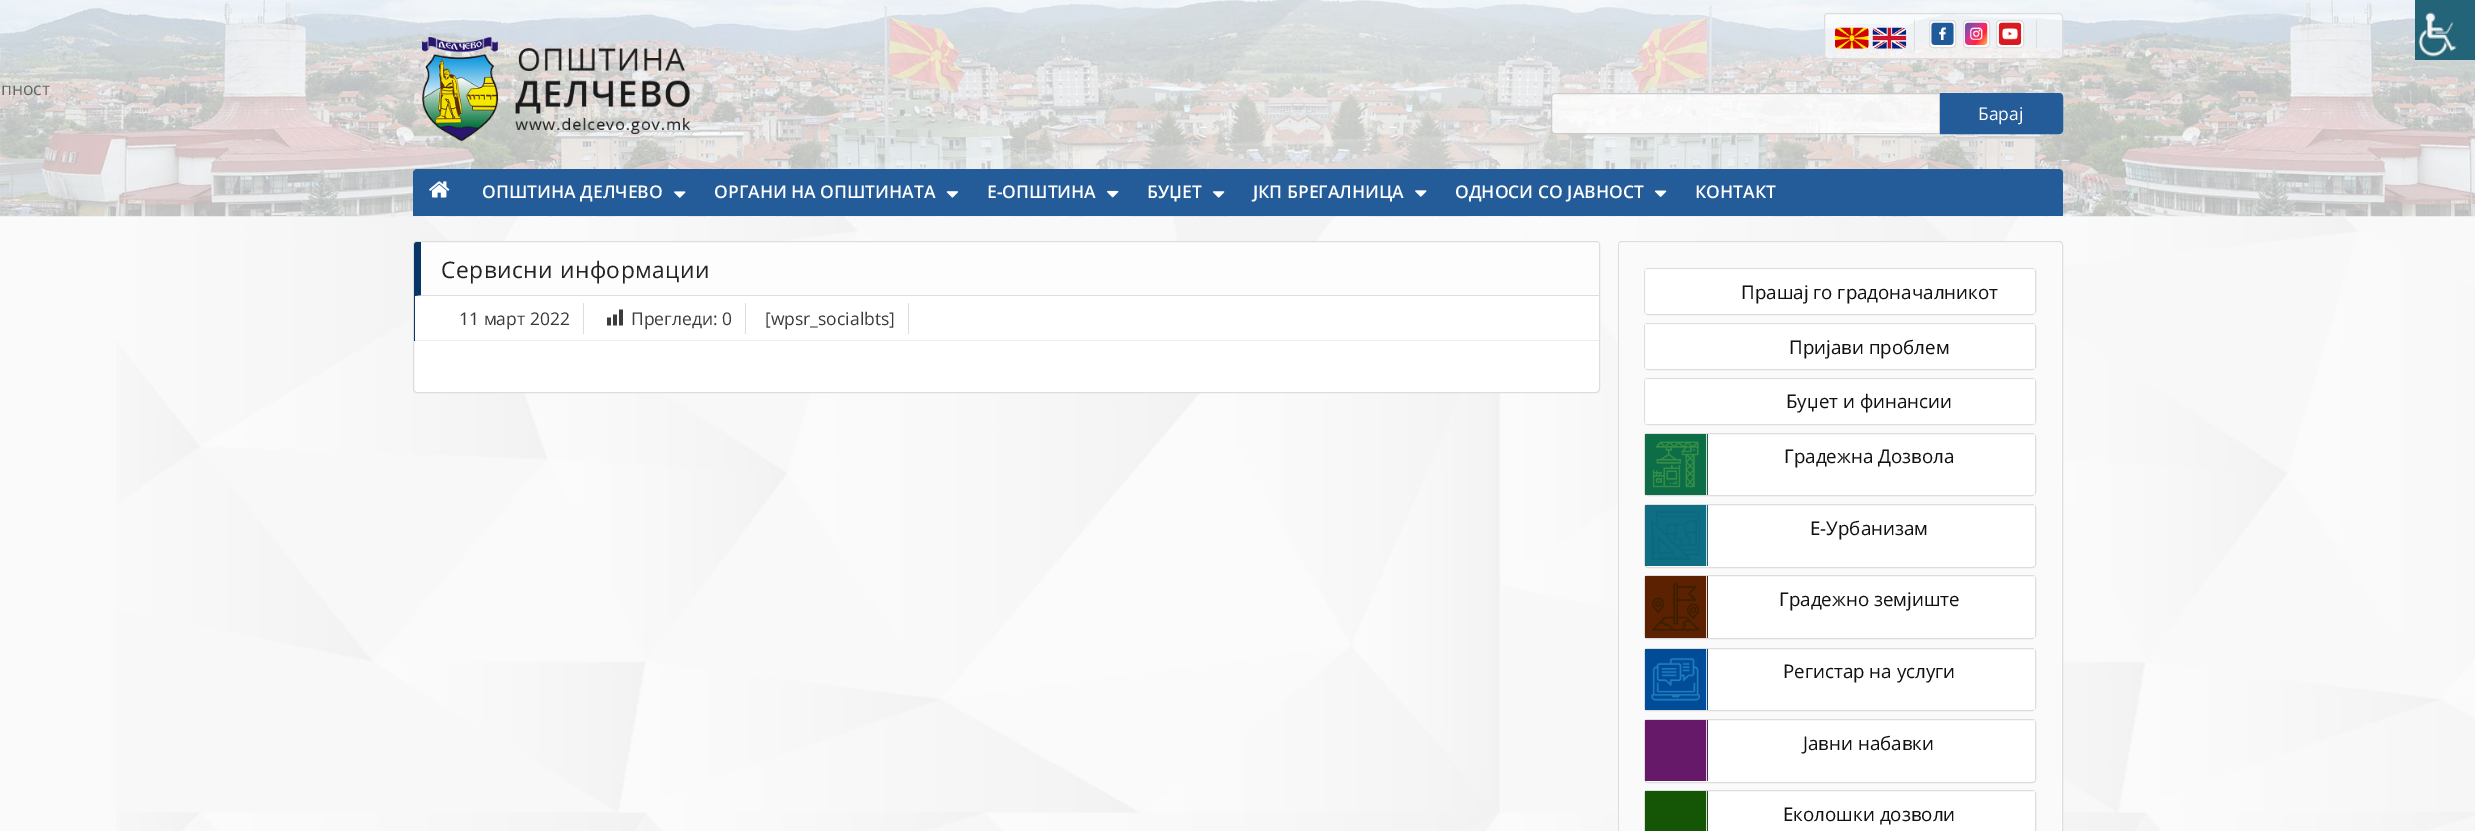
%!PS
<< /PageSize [2475 831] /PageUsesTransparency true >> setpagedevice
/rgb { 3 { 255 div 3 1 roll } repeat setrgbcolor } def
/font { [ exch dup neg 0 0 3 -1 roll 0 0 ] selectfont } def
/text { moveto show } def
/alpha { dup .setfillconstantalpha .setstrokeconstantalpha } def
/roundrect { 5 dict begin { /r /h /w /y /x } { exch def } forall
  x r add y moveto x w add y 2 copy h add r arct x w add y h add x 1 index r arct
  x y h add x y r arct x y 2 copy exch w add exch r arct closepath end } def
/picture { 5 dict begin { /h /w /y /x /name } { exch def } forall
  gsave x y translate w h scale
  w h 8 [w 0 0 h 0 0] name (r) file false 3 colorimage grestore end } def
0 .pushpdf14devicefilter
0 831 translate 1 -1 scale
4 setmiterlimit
250 250 250 rgb
0 0 2475 831 rectfill
(img_01.rgb) 116 216 2359 615 picture
(img_03.rgb) 0 0 2475 217 picture
(img_02.rgb) 2415 0 60 60 picture
(img_04.rgb) 299 0 1766 216 picture
0.6 alpha
255 255 255 rgb
1824.5 13.5 238 45 3.5 roundrect fill
1 alpha
221 221 221 rgb
1824.5 13.5 238 45 3.5 roundrect stroke
1914 20 1 31 rectfill
255 255 255 rgb
1835 28 34 21 4 roundrect fill
(img_05.rgb) 1835 27 34 22 picture
1873 28 33 21 4 roundrect fill
(img_06.rgb) 1872 27 35 22 picture
221 221 221 rgb
2036 20 1 28 rectfill
255 255 255 rgb
1929.5 20.5 26 27 3.5 roundrect gsave fill grestore
221 221 221 rgb
stroke
(img_07.rgb) 1931 22 23 23 picture
255 255 255 rgb
1963.5 20.5 26 27 3.5 roundrect gsave fill grestore
221 221 221 rgb
stroke
(img_08.rgb) 1965 22 23 23 picture
255 255 255 rgb
1996.5 20.5 27 27 3.5 roundrect gsave fill grestore
221 221 221 rgb
stroke
(img_09.rgb) 1998 22 24 23 picture
(img_10.rgb) 422 37 269 105 picture
0.8 alpha
255 255 255 rgb
1555 93.5 moveto 384.5 0 rlineto 0 40 rlineto -384.5 0 rlineto -2 0 -3.5 -1.5 -3.5 -3.5 rcurveto 0 -33 rlineto 0 -2 1.5 -3.5 3.5 -3.5 rcurveto closepath fill
1 alpha
204 204 204 rgb
1555 93.5 moveto 384.5 0 rlineto 0 40 rlineto -384.5 0 rlineto -2 0 -3.5 -1.5 -3.5 -3.5 rcurveto 0 -33 rlineto 0 -2 1.5 -3.5 3.5 -3.5 rcurveto closepath stroke
35 92 153 rgb
1940.5 93.5 moveto 118.5 0 rlineto 2 0 3.5 1.5 3.5 3.5 rcurveto 0 33 rlineto 0 2 -1.5 3.5 -3.5 3.5 rcurveto -118.5 0 rlineto closepath gsave fill grestore
stroke
417 169 moveto 1642 0 rlineto 2 0 4 2 4 4 rcurveto 0 43 rlineto -1650 0 rlineto 0 -43 rlineto 0 -2 2 -4 4 -4 rcurveto closepath fill
(img_11.rgb) 429 181 21 17 picture
(img_12.rgb) 674 191 12 7 picture
(img_13.rgb) 946 191 13 7 picture
(img_14.rgb) 1107 190 12 8 picture
(img_15.rgb) 1213 191 12 7 picture
(img_16.rgb) 1415 190 12 7 picture
(img_17.rgb) 1654 190 13 7 picture
255 255 255 rgb
413.5 241.5 1186 151 3.5 roundrect gsave fill grestore
221 221 221 rgb
stroke
253 253 253 rgb
418 243 moveto 1181 0 rlineto 0 53 rlineto -1185 0 rlineto 0 -49 rlineto 0 -2 2 -4 4 -4 rcurveto closepath fill
221 221 221 rgb
1599 296 moveto -1184 0 rlineto 6 -1 rlineto 1178 0 rlineto closepath fill
8 54 102 rgb
415 296 moveto -1 0 rlineto 0 -50 rlineto 0 -1 0 -3 2 -4 rcurveto 5 0 rlineto 0 53 rlineto closepath fill
238 238 238 rgb
414 340 1185 1 rectfill
8 54 102 rgb
414 296 1 45 rectfill
221 221 221 rgb
583 303 1 31 rectfill
745 303 1 31 rectfill
(img_18.rgb) 607 309 16 17 picture
908 303 1 31 rectfill
255 255 255 rgb
1618.5 241.5 444 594 3.5 roundrect gsave fill grestore
221 221 221 rgb
stroke
250 250 250 rgb
1619 243 442 588 rectfill
255 255 255 rgb
1644.5 268.5 391 46 3.5 roundrect gsave fill grestore
221 221 221 rgb
stroke
0.7 alpha
255 255 255 rgb
1645 269 390 45 rectfill
1 alpha
1644.5 323.5 391 46 3.5 roundrect gsave fill grestore
221 221 221 rgb
stroke
0.7 alpha
255 255 255 rgb
1645 324 390 45 rectfill
1 alpha
1644.5 378.5 391 46 3.5 roundrect gsave fill grestore
221 221 221 rgb
stroke
0.7 alpha
255 255 255 rgb
1645 379 390 45 rectfill
1 alpha
1644.5 433.5 391 62 3.5 roundrect gsave fill grestore
221 221 221 rgb
stroke
0.7 alpha
255 255 255 rgb
2033 434 2 61 rectfill
1 alpha
12 109 70 rgb
1645 434 63 61 rectfill
221 221 221 rgb
1706 434 1 61 rectfill
(img_19.rgb) 1652 441 47 47 picture
255 255 255 rgb
1644.5 504.5 391 63 3.5 roundrect gsave fill grestore
221 221 221 rgb
stroke
0.7 alpha
255 255 255 rgb
2033 505 2 61 rectfill
1 alpha
15 109 132 rgb
1645 505 63 61 rectfill
221 221 221 rgb
1706 505 1 61 rectfill
(img_20.rgb) 1651 511 49 49 picture
255 255 255 rgb
1644.5 575.5 391 63 3.5 roundrect gsave fill grestore
221 221 221 rgb
stroke
0.7 alpha
255 255 255 rgb
2033 576 2 62 rectfill
1 alpha
91 33 0 rgb
1645 576 63 62 rectfill
221 221 221 rgb
1706 576 1 62 rectfill
(img_21.rgb) 1652 583 48 48 picture
255 255 255 rgb
1644.5 648.5 391 62 3.5 roundrect gsave fill grestore
221 221 221 rgb
stroke
0.7 alpha
255 255 255 rgb
2033 649 2 61 rectfill
1 alpha
0 76 153 rgb
1645 649 63 61 rectfill
221 221 221 rgb
1706 649 1 61 rectfill
(img_22.rgb) 1651 658 49 43 picture
255 255 255 rgb
1644.5 719.5 391 63 3.5 roundrect gsave fill grestore
221 221 221 rgb
stroke
0.7 alpha
255 255 255 rgb
2033 720 2 61 rectfill
1 alpha
101 25 104 rgb
1645 720 63 61 rectfill
221 221 221 rgb
1706 720 1 61 rectfill
255 255 255 rgb
1644.5 790.5 391 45 3.5 roundrect gsave fill grestore
221 221 221 rgb
stroke
0.7 alpha
255 255 255 rgb
2033 791 2 2 rectfill
1 alpha
20 85 6 rgb
1645 791 63 40 rectfill
221 221 221 rgb
1706 791 1 40 rectfill
/OpenSans-Regular 17.5 font
102 102 102 rgb
(пност) 1 95 text
255 255 255 rgb
(Барај) 1978 120 text
/OpenSans-SemiBold 17.5 font
(ОПШТИНА ДЕЛЧЕВО) 482 198 text
(ОРГАНИ НА ОПШТИНАТА) 714 198 text
(Е-ОПШТИНА) 987 198 text
(БУЏЕТ) 1147 198 text
(ЈКП БРЕГАЛНИЦА) 1253 198 text
(ОДНОСИ СО ЈАВНОСТ) 1455 198 text
(КОНТАКТ) 1695 198 text
/OpenSans-Regular 22.75 font
34 34 34 rgb
441 278 moveto 0.5 0 (Сервисни информации) ashow
/OpenSans-Regular 17.5 font
59 59 59 rgb
(11 март 2022) 459 325 text
(Прегледи: 0) 631 325 text
([wpsr_socialbts]) 765 325 text
/OpenSans-Regular 18.75 font
17 17 17 rgb
(Прашај го градоначалникот) 1741 299 text
(Пријави проблем) 1789 354 text
(Буџет и финансии) 1786 408 text
(Градежна Дозвола) 1784 463 text
(Е-Урбанизам) 1810 535 text
(Градежно земјиште) 1779 606 text
(Регистар на услуги) 1783 678 text
(Јавни набавки) 1803 750 text
(Еколошки дозволи) 1783 821 text
.poppdf14devicefilter showpage
